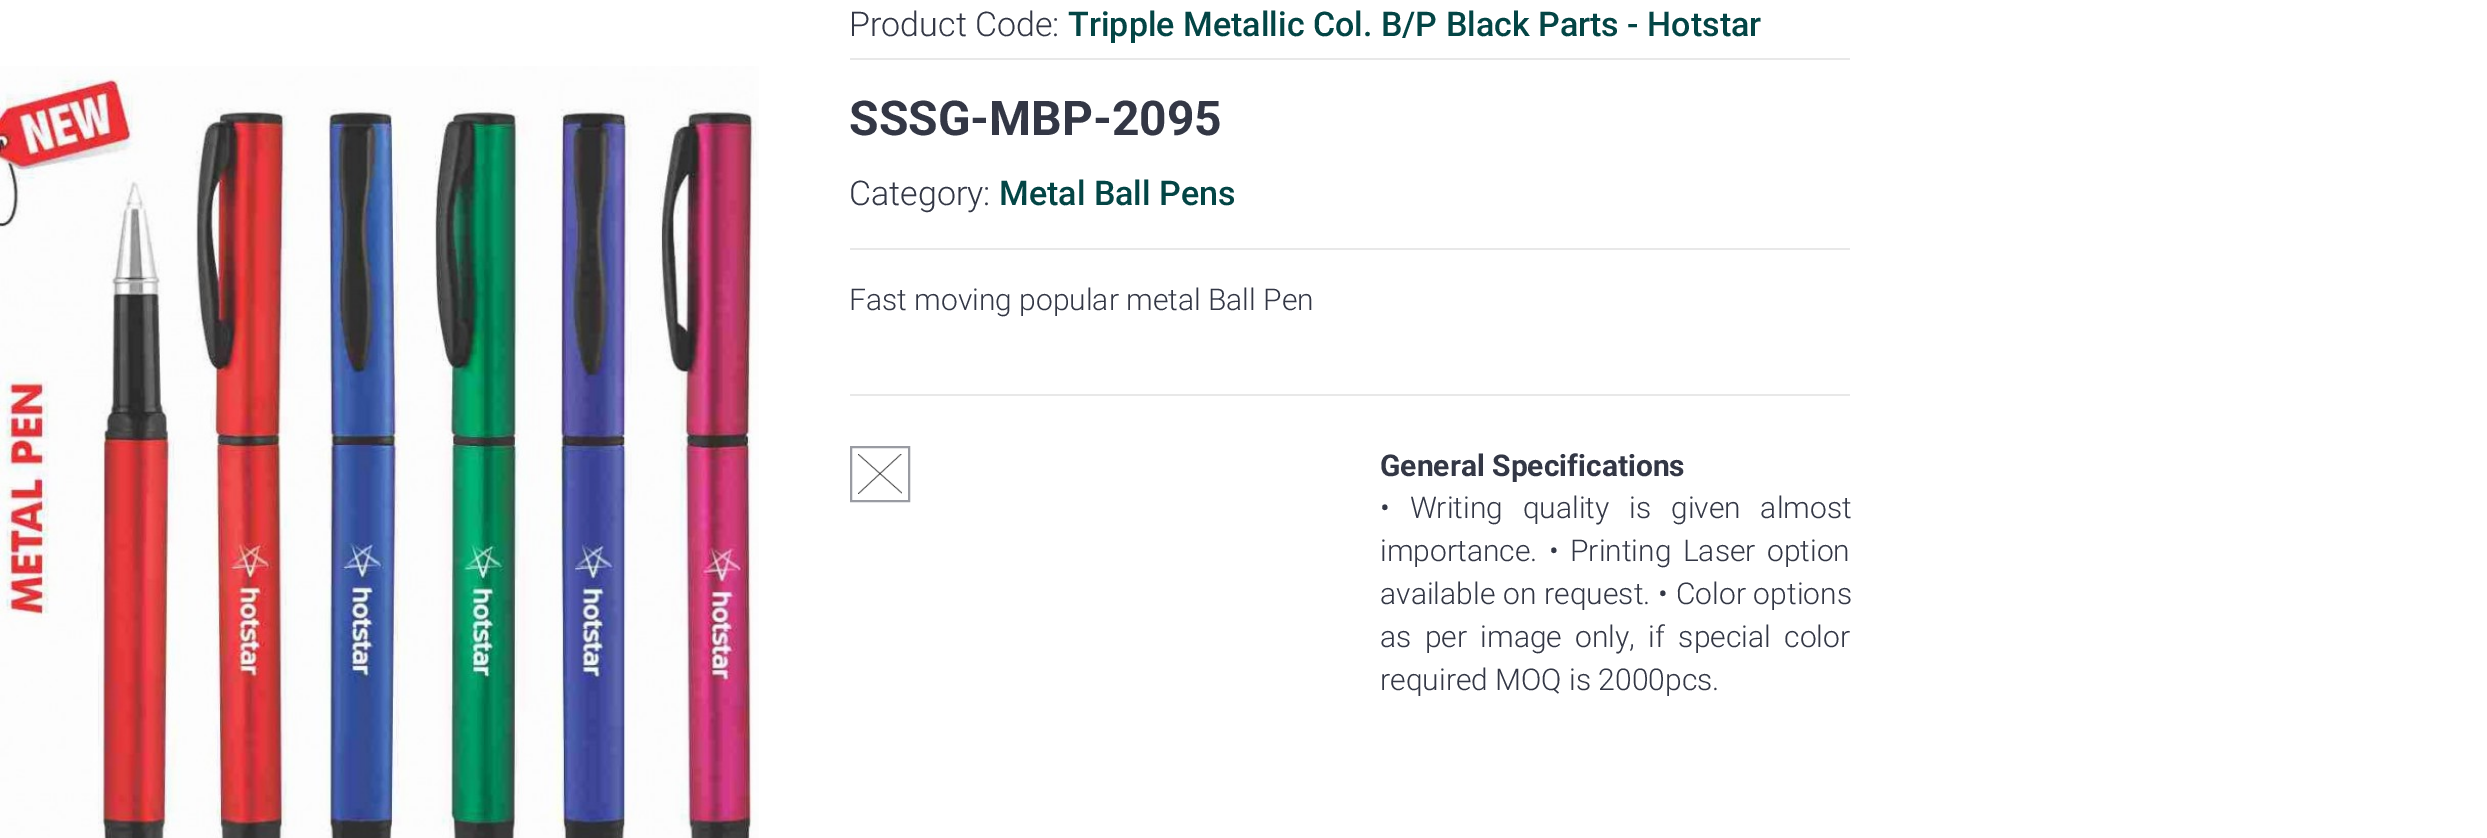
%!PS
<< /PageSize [2487 838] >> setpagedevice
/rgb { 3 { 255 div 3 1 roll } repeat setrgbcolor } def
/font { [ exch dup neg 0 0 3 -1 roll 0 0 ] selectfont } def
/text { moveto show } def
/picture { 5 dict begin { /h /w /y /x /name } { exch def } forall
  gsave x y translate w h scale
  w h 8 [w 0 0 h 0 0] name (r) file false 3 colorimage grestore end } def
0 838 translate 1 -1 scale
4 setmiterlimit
255 255 255 rgb
0 0 2487 838 rectfill
(img_01.rgb) 0 66 759 772 picture
232 232 232 rgb
850 58 1000 2 rectfill
850 248 1000 2 rectfill
850 394 1000 2 rectfill
153 155 162 rgb
2 setlinewidth
851 447 58 54 rectstroke
(img_02.rgb) 858 454 44 40 picture
/Roboto-Light 34 font
51 55 69 rgb
(Product Code:) 849 36 text
/Roboto-Medium 34 font
3 69 69 rgb
(Tripple Metallic Col. B/P Black Parts - Hotstar) 1068 36 text
/Roboto-Bold 48 font
51 55 69 rgb
(SSSG-MBP-2095) 849 135 text
/Roboto-Light 34 font
(Category:) 849 205 text
/Roboto-Medium 34 font
3 69 69 rgb
(Metal Ball Pens) 999 205 text
/Roboto-Light 30 font
51 55 69 rgb
(Fast moving popular metal Ball Pen) 849 310 text
/Roboto-Bold 30 font
(General Specifications) 1380 476 text
/Roboto-Light 30 font
1380 518 moveto 12.5 0 32 (• Writing quality is given almost) widthshow
(importance.) 1380 561 text
1549 561 moveto 4 0 32 (• Printing Laser option) widthshow
1380 604 moveto 0.5 0 32 (available on request. • Color options) widthshow
1380 647 moveto 6 0 32 (as per image only, if special color) widthshow
(required MOQ is 2000pcs.) 1380 690 text
showpage
